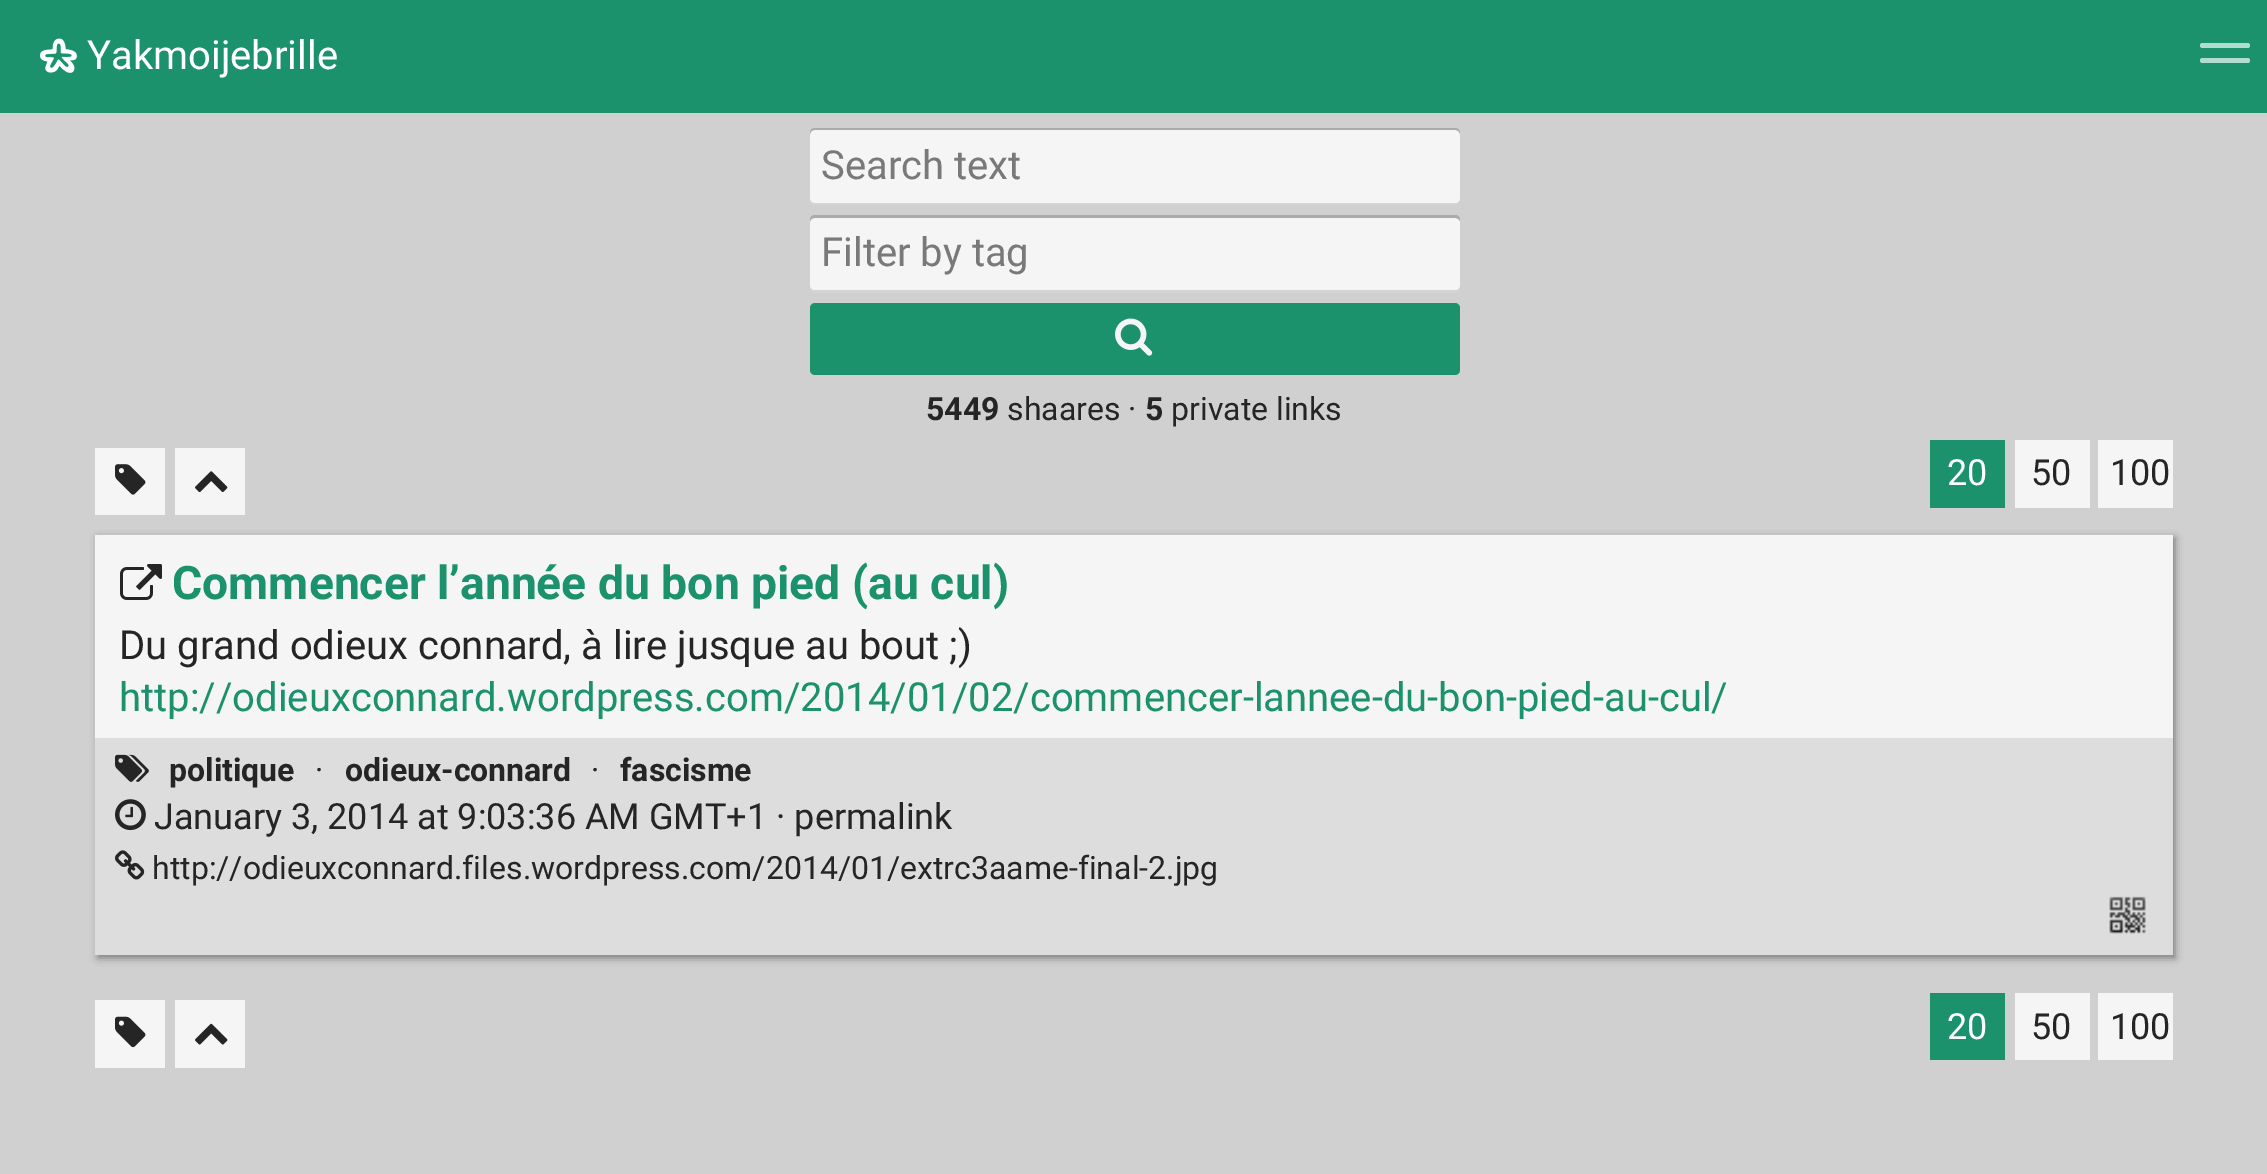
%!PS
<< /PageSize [2267 1174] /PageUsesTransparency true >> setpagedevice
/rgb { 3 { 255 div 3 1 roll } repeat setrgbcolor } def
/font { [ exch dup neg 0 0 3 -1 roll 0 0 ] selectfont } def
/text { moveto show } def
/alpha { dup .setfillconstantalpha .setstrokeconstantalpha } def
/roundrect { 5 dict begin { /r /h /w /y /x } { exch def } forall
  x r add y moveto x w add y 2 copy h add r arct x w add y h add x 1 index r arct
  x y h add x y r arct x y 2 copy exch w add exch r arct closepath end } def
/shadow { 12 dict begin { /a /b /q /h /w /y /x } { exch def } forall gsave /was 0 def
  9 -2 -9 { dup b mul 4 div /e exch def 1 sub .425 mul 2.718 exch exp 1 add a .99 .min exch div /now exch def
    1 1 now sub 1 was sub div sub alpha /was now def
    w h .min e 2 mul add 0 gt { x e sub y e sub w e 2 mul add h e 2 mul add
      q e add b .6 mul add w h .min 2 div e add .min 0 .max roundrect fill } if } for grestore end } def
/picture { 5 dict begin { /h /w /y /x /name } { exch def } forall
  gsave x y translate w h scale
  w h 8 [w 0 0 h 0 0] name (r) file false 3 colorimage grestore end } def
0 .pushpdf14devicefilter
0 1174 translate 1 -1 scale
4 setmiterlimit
208 208 208 rgb
0 0 2267 1174 rectfill
27 146 108 rgb
0 0 2267 113 rectfill
(img_01.rgb) 40 38 37 35 picture
176 221 206 rgb
2200 43 50 5 2.5 roundrect fill
2200 58 50 5 2.5 roundrect fill
212 212 212 rgb
810 198 moveto 0 2 rlineto 0 3 2 5 5 5 rcurveto 640 0 rlineto 3 0 5 -2 5 -5 rcurveto 0 -2 rlineto 0 2 -2 4 -5 4 rcurveto -640 0 rlineto -3 0 -5 -2 -5 -4 rcurveto closepath fill
245 245 245 rgb
810 128 650 75 5 roundrect fill
0.3 alpha
0 0 0 rgb
815 130 moveto 640 0 rlineto 3 0 5 2 5 5 rcurveto 0 -2 rlineto 0 -3 -2 -5 -5 -5 rcurveto -640 0 rlineto -3 0 -5 2 -5 5 rcurveto 0 2 rlineto 0 -3 2 -5 5 -5 rcurveto closepath fill
1 alpha
212 212 212 rgb
810 285 moveto 0 3 rlineto 0 3 2 5 5 5 rcurveto 640 0 rlineto 3 0 5 -2 5 -5 rcurveto 0 -3 rlineto 0 3 -2 5 -5 5 rcurveto -640 0 rlineto -3 0 -5 -2 -5 -5 rcurveto closepath fill
245 245 245 rgb
810 215 650 75 5 roundrect fill
0.3 alpha
0 0 0 rgb
815 218 moveto 640 0 rlineto 3 0 5 2 5 4 rcurveto 0 -2 rlineto 0 -3 -2 -5 -5 -5 rcurveto -640 0 rlineto -3 0 -5 2 -5 5 rcurveto 0 2 rlineto 0 -2 2 -4 5 -4 rcurveto closepath fill
1 alpha
27 146 108 rgb
810 303 650 72 5 roundrect fill
(img_02.rgb) 1115 318 38 38 picture
245 245 245 rgb
95 448 70 67 rectfill
(img_03.rgb) 115 464 31 31 picture
175 448 70 67 rectfill
(img_04.rgb) 195 471 33 22 picture
27 146 108 rgb
1930 440 75 68 rectfill
245 245 245 rgb
2015 440 75 68 rectfill
2098 440 75 68 rectfill
121 121 121 rgb
98 538 2077 420 0 4 1 shadow
245 245 245 rgb
95 535 2078 203 rectfill
(img_05.rgb) 120 564 42 36 picture
221 221 221 rgb
95 738 2078 217 rectfill
(img_06.rgb) 115 754 34 28 picture
(img_07.rgb) 115 799 31 32 picture
(img_08.rgb) 115 850 30 30 picture
(img_09.rgb) 2109 896 37 38 picture
245 245 245 rgb
95 1000 70 68 rectfill
(img_10.rgb) 115 1016 31 32 picture
175 1000 70 68 rectfill
(img_11.rgb) 195 1023 33 22 picture
27 146 108 rgb
1930 993 75 67 rectfill
245 245 245 rgb
2015 993 75 67 rectfill
2098 993 75 67 rectfill
/Roboto-Regular 40 font
255 255 255 rgb
(Yakmoijebrille) 87 69 text
121 121 121 rgb
(Search text) 821 179 text
(Filter by tag) 821 266 text
/Roboto-Bold 32 font
37 37 37 rgb
(5449) 926 420 text
/Roboto-Regular 32 font
(shaares ·) 1007 420 text
/Roboto-Bold 32 font
(5) 1145 420 text
/Roboto-Regular 32 font
(private links) 1171 420 text
/Roboto-Regular 36 font
255 255 255 rgb
(20) 1947 485 text
37 37 37 rgb
(50) 2031 485 text
(100) 2110 485 text
/Roboto-Bold 46.25 font
27 146 108 rgb
(Commencer l’année du bon pied \(au cul\)) 172 599 text
/Roboto-Regular 40 font
37 37 37 rgb
(Du grand odieux connard, à lire jusque au bout ;\)) 119 659 text
27 146 108 rgb
(http://odieuxconnard.wordpress.com/2014/01/02/commencer-lannee-du-bon-pied-au-cul/) 119 711 text
/Roboto-Bold 32 font
37 37 37 rgb
(politique) 169 781 text
/Roboto-Regular 32 font
(·) 315 781 text
/Roboto-Bold 32 font
(odieux-connard) 345 781 text
/Roboto-Regular 32 font
(·) 591 781 text
/Roboto-Bold 32 font
(fascisme) 620 781 text
/Roboto-Regular 36 font
(January 3, 2014 at 9:03:36 AM GMT+1) 154 829 text
(· permalink) 776 829 text
/Roboto-Regular 32 font
(http://odieuxconnard.files.wordpress.com/2014/01/extrc3aame-final-2.jpg) 152 879 text
/Roboto-Regular 36 font
255 255 255 rgb
(20) 1947 1039 text
37 37 37 rgb
(50) 2031 1039 text
(100) 2110 1039 text
.poppdf14devicefilter showpage
